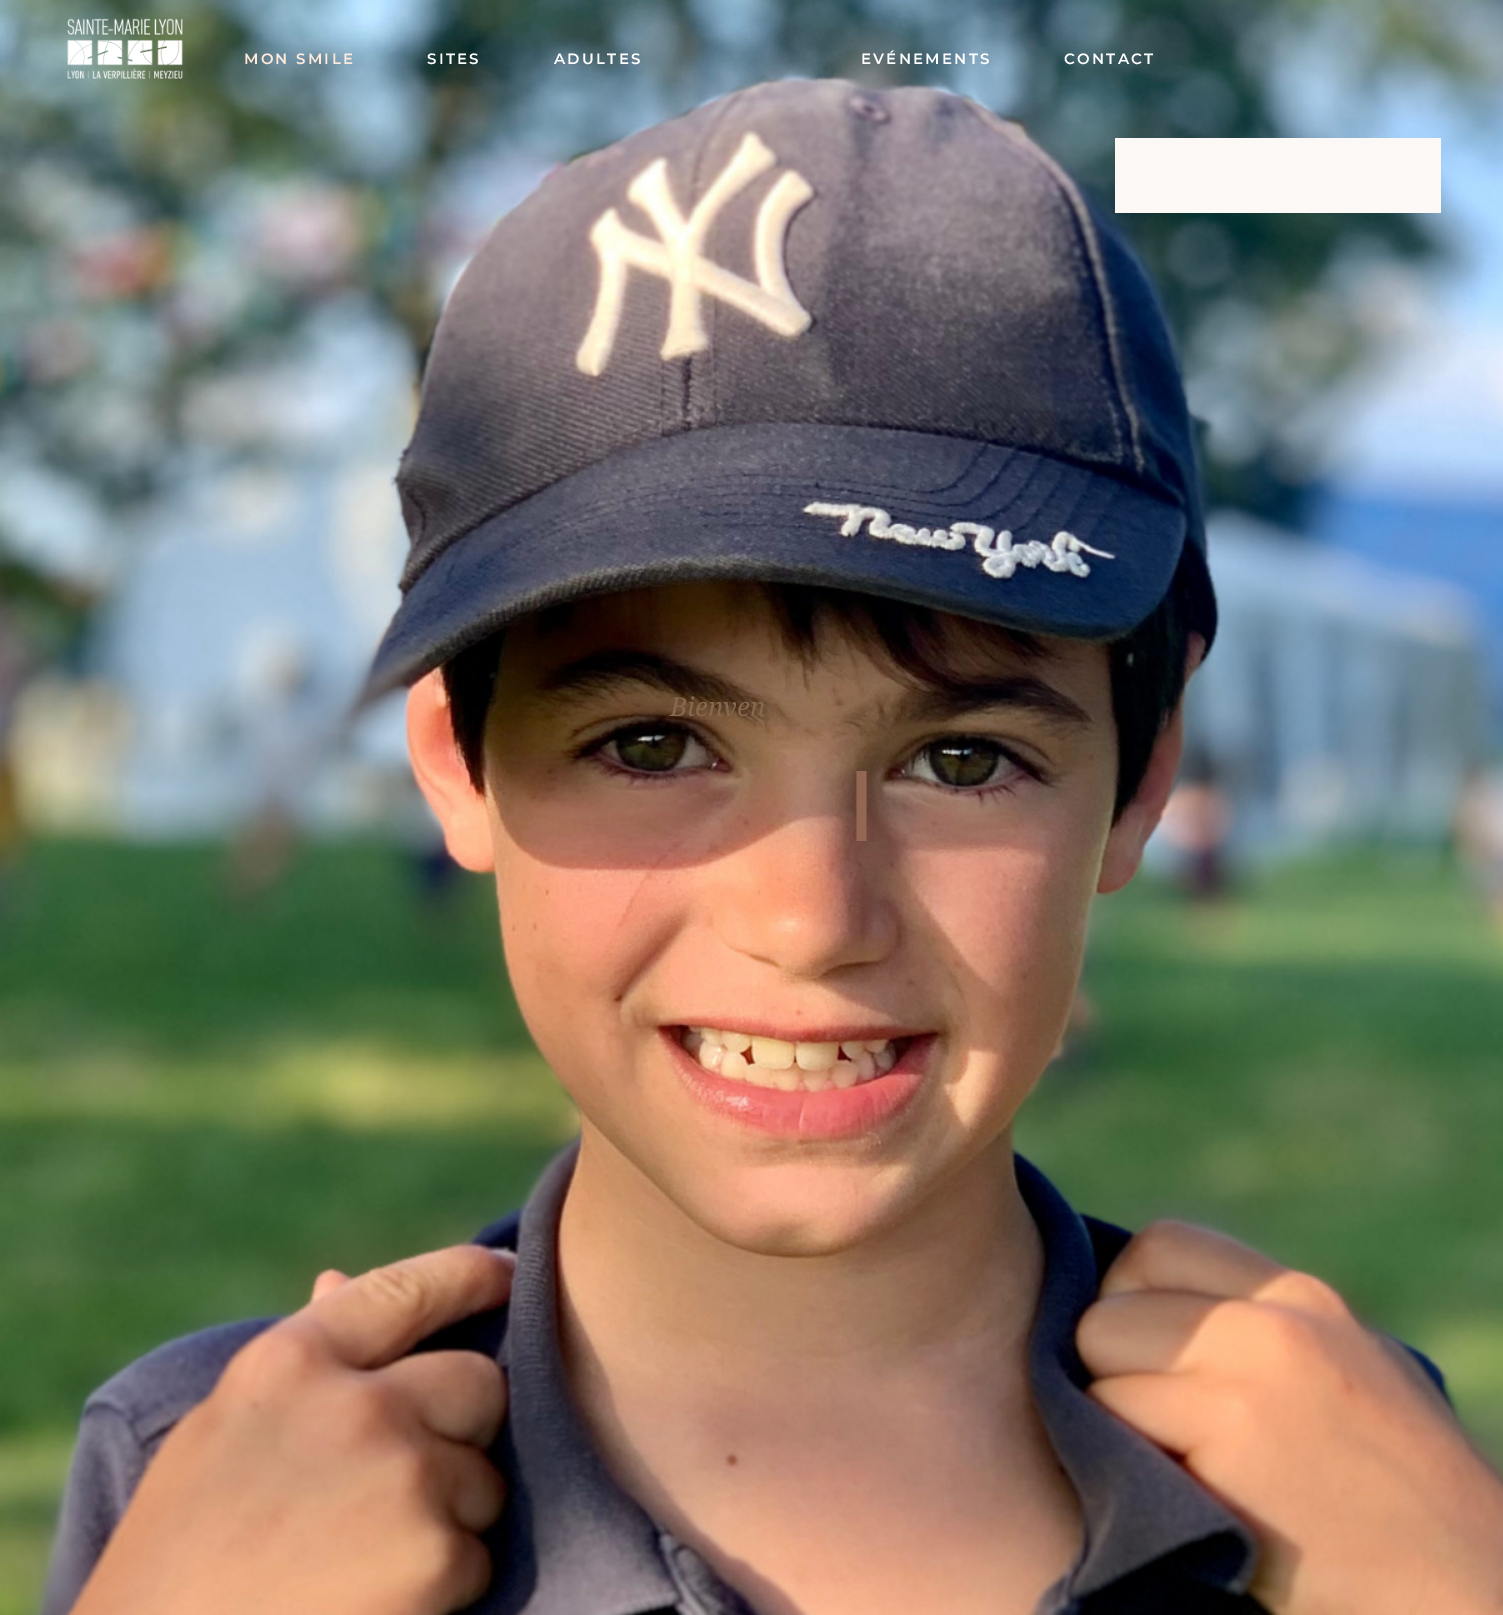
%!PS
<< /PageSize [1503 1615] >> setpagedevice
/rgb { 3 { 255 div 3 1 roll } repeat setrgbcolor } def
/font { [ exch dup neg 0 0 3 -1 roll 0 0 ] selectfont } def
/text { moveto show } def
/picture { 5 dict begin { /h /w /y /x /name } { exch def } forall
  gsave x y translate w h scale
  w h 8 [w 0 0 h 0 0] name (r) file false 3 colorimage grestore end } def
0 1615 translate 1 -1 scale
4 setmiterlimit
255 255 255 rgb
0 0 1503 1615 rectfill
(img_02.rgb) 0 0 1503 1615 picture
(img_01.rgb) 67 18 116 61 picture
252 248 246 rgb
1115 138 326 75 rectfill
/Montserrat-SemiBold 15 font
255 234 220 rgb
244 64 moveto 2.25 0 (MON SMILE) ashow
255 255 255 rgb
427 64 moveto 2.25 0 (SITES) ashow
554 64 moveto 2.25 0 (ADULTES) ashow
861 64 moveto 2.25 0 (EVÉNEMENTS) ashow
1064 64 moveto 2.25 0 (CONTACT) ashow
/NotoSerif-Italic 26 font
134 104 79 rgb
(Bienven) 670 716 text
/Montserrat-Medium 100 font
148 103 85 rgb
846 841 moveto 8 0 (I) ashow
showpage
